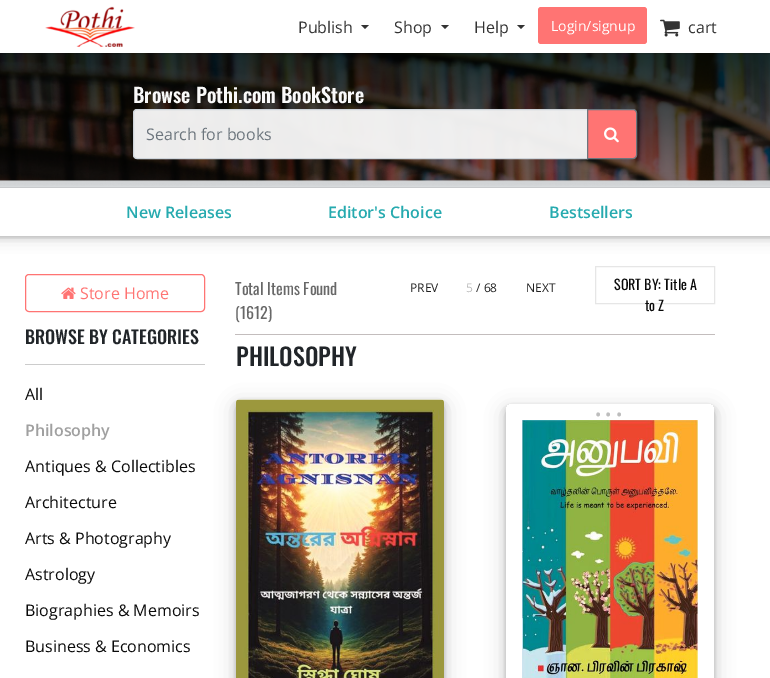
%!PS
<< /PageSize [770 678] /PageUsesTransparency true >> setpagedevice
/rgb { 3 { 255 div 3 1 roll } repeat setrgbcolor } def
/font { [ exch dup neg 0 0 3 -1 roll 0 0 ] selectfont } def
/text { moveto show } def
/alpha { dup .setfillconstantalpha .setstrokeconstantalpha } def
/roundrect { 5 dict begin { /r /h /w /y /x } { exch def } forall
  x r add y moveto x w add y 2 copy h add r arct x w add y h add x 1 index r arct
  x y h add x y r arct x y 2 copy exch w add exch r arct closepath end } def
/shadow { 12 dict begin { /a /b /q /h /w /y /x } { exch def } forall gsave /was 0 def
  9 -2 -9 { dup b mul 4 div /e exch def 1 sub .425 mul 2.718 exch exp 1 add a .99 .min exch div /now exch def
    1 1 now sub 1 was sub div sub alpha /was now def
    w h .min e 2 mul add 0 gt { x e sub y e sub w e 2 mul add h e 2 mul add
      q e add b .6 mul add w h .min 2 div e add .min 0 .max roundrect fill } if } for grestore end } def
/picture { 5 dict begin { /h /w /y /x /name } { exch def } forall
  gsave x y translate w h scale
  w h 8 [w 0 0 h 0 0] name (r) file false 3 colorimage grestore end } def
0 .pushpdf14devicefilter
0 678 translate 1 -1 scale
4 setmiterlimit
255 255 255 rgb
0 0 770 678 rectfill
236 239 241 rgb
0 180 770 8 rectfill
(img_03.rgb) 0 53 770 133 picture
0 0 0 rgb
0 1 770 53 0 1.5 0.2 shadow
255 255 255 rgb
0 0 770 53 rectfill
(img_01.rgb) 45 6 90 41 picture
51 51 51 rgb
361 25 moveto 8 0 rlineto -4 4 rlineto closepath fill
441 25 moveto 8 0 rlineto -4 4 rlineto closepath fill
517 25 moveto 8 0 rlineto -4 4 rlineto closepath fill
255 116 115 rgb
538 7 109 37 3 roundrect fill
(img_02.rgb) 660 19 20 18 picture
0.95 alpha
248 248 248 rgb
137 109.5 moveto 450.5 0 rlineto 0 49 rlineto -450.5 0 rlineto -2 0 -3.5 -1.5 -3.5 -3.5 rcurveto 0 -42 rlineto 0 -2 1.5 -3.5 3.5 -3.5 rcurveto closepath fill
1 alpha
206 212 218 rgb
137 109.5 moveto 450.5 0 rlineto 0 49 rlineto -450.5 0 rlineto -2 0 -3.5 -1.5 -3.5 -3.5 rcurveto 0 -42 rlineto 0 -2 1.5 -3.5 3.5 -3.5 rcurveto closepath stroke
255 116 115 rgb
587.5 109.5 moveto 45.5 0 rlineto 2 0 3.5 1.5 3.5 3.5 rcurveto 0 42 rlineto 0 2 -1.5 3.5 -3.5 3.5 rcurveto -45.5 0 rlineto closepath gsave fill grestore
108 117 125 rgb
stroke
(img_04.rgb) 604 127 15 16 picture
0 0 0 rgb
-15 189 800 48 0 7.5 0.19 shadow
-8 189 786 48 0 2.5 0.2 shadow
255 255 255 rgb
0 188 770 48 rectfill
255 116 115 rgb
25.5 274.5 179 37 3.5 roundrect stroke
(img_05.rgb) 61 287 15 12 picture
204 204 204 rgb
25 364 180 1 rectfill
195 189 189 rgb
235 334 480 1 rectfill
230 230 230 rgb
595.5 266.5 119 37 rectstroke
0 0 0 rgb
236 405 208 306 3 10 0.19 shadow
236 403 208 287 3 3 0.2 shadow
(img_06.rgb) 236 399 208 279 picture
gsave
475 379 moveto 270 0 rlineto 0 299 rlineto -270 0 rlineto closepath 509 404 moveto 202 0 rlineto 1.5 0 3 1.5 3 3 rcurveto 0 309 rlineto -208 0 rlineto 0 -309 rlineto 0 -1.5 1.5 -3 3 -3 rcurveto closepath eoclip newpath
506 410 208 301 3 10 0.19 shadow
grestore
gsave
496 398 moveto 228 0 rlineto 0 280 rlineto -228 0 rlineto closepath 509 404 moveto 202 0 rlineto 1.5 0 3 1.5 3 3 rcurveto 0 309 rlineto -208 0 rlineto 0 -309 rlineto 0 -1.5 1.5 -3 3 -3 rcurveto closepath eoclip newpath
506 408 208 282 3 3 0.2 shadow
grestore
(img_07.rgb) 522 420 176 258 picture
/OpenSans-Regular 16 font
51 51 51 rgb
(Publish) 298 33 text
(Shop) 394 33 text
(Help) 474 33 text
/OpenSans-Regular 14 font
255 255 255 rgb
(Login/signup) 551 31 text
/OpenSans-Regular 16 font
51 51 51 rgb
(cart) 688 33 text
/Oswald-SemiBold 20 font
249 249 249 rgb
(Browse Pothi.com BookStore) 133 103 text
/OpenSans-Regular 16 font
108 117 125 rgb
(Search for books) 146 140 text
/OpenSans-SemiBold 16 font
38 170 175 rgb
(New Releases) 126 218 text
(Editor's Choice) 328 218 text
(Bestsellers) 549 218 text
/OpenSans-Regular 16 font
255 116 115 rgb
(Store Home) 80 299 text
/Oswald-Medium 18 font
33 37 41 rgb
(BROWSE BY CATEGORIES) 25 344 text
/OpenSans-Regular 16 font
10 10 10 rgb
(All) 25 400 text
/OpenSans-SemiBold 16 font
160 160 160 rgb
(Philosophy) 25 436 text
/OpenSans-Regular 16 font
10 10 10 rgb
(Antiques & Collectibles) 25 472 text
(Architecture) 25 508 text
(Arts & Photography) 25 544 text
(Astrology) 25 580 text
(Biographies & Memoirs) 25 616 text
(Business & Economics) 25 652 text
/Oswald-Regular 16 font
104 104 104 rgb
(Total Items Found) 235 295 text
(\(1612\)) 235 319 text
/OpenSans-Regular 12 font
33 33 33 rgb
(PREV) 410 292 text
189 189 189 rgb
(5) 466 292 text
33 33 33 rgb
(/ 68) 476 292 text
(NEXT) 526 292 text
/Oswald-Regular 14 font
10 10 10 rgb
(SORT BY: Title A) 614 290 text
(to Z) 645 311 text
/Oswald-Medium 24 font
33 37 41 rgb
(PHILOSOPHY) 236 366 text
/OpenSans-Regular 32 font
189 189 189 rgb
594 416 moveto 2 0 (...) ashow
.poppdf14devicefilter showpage
